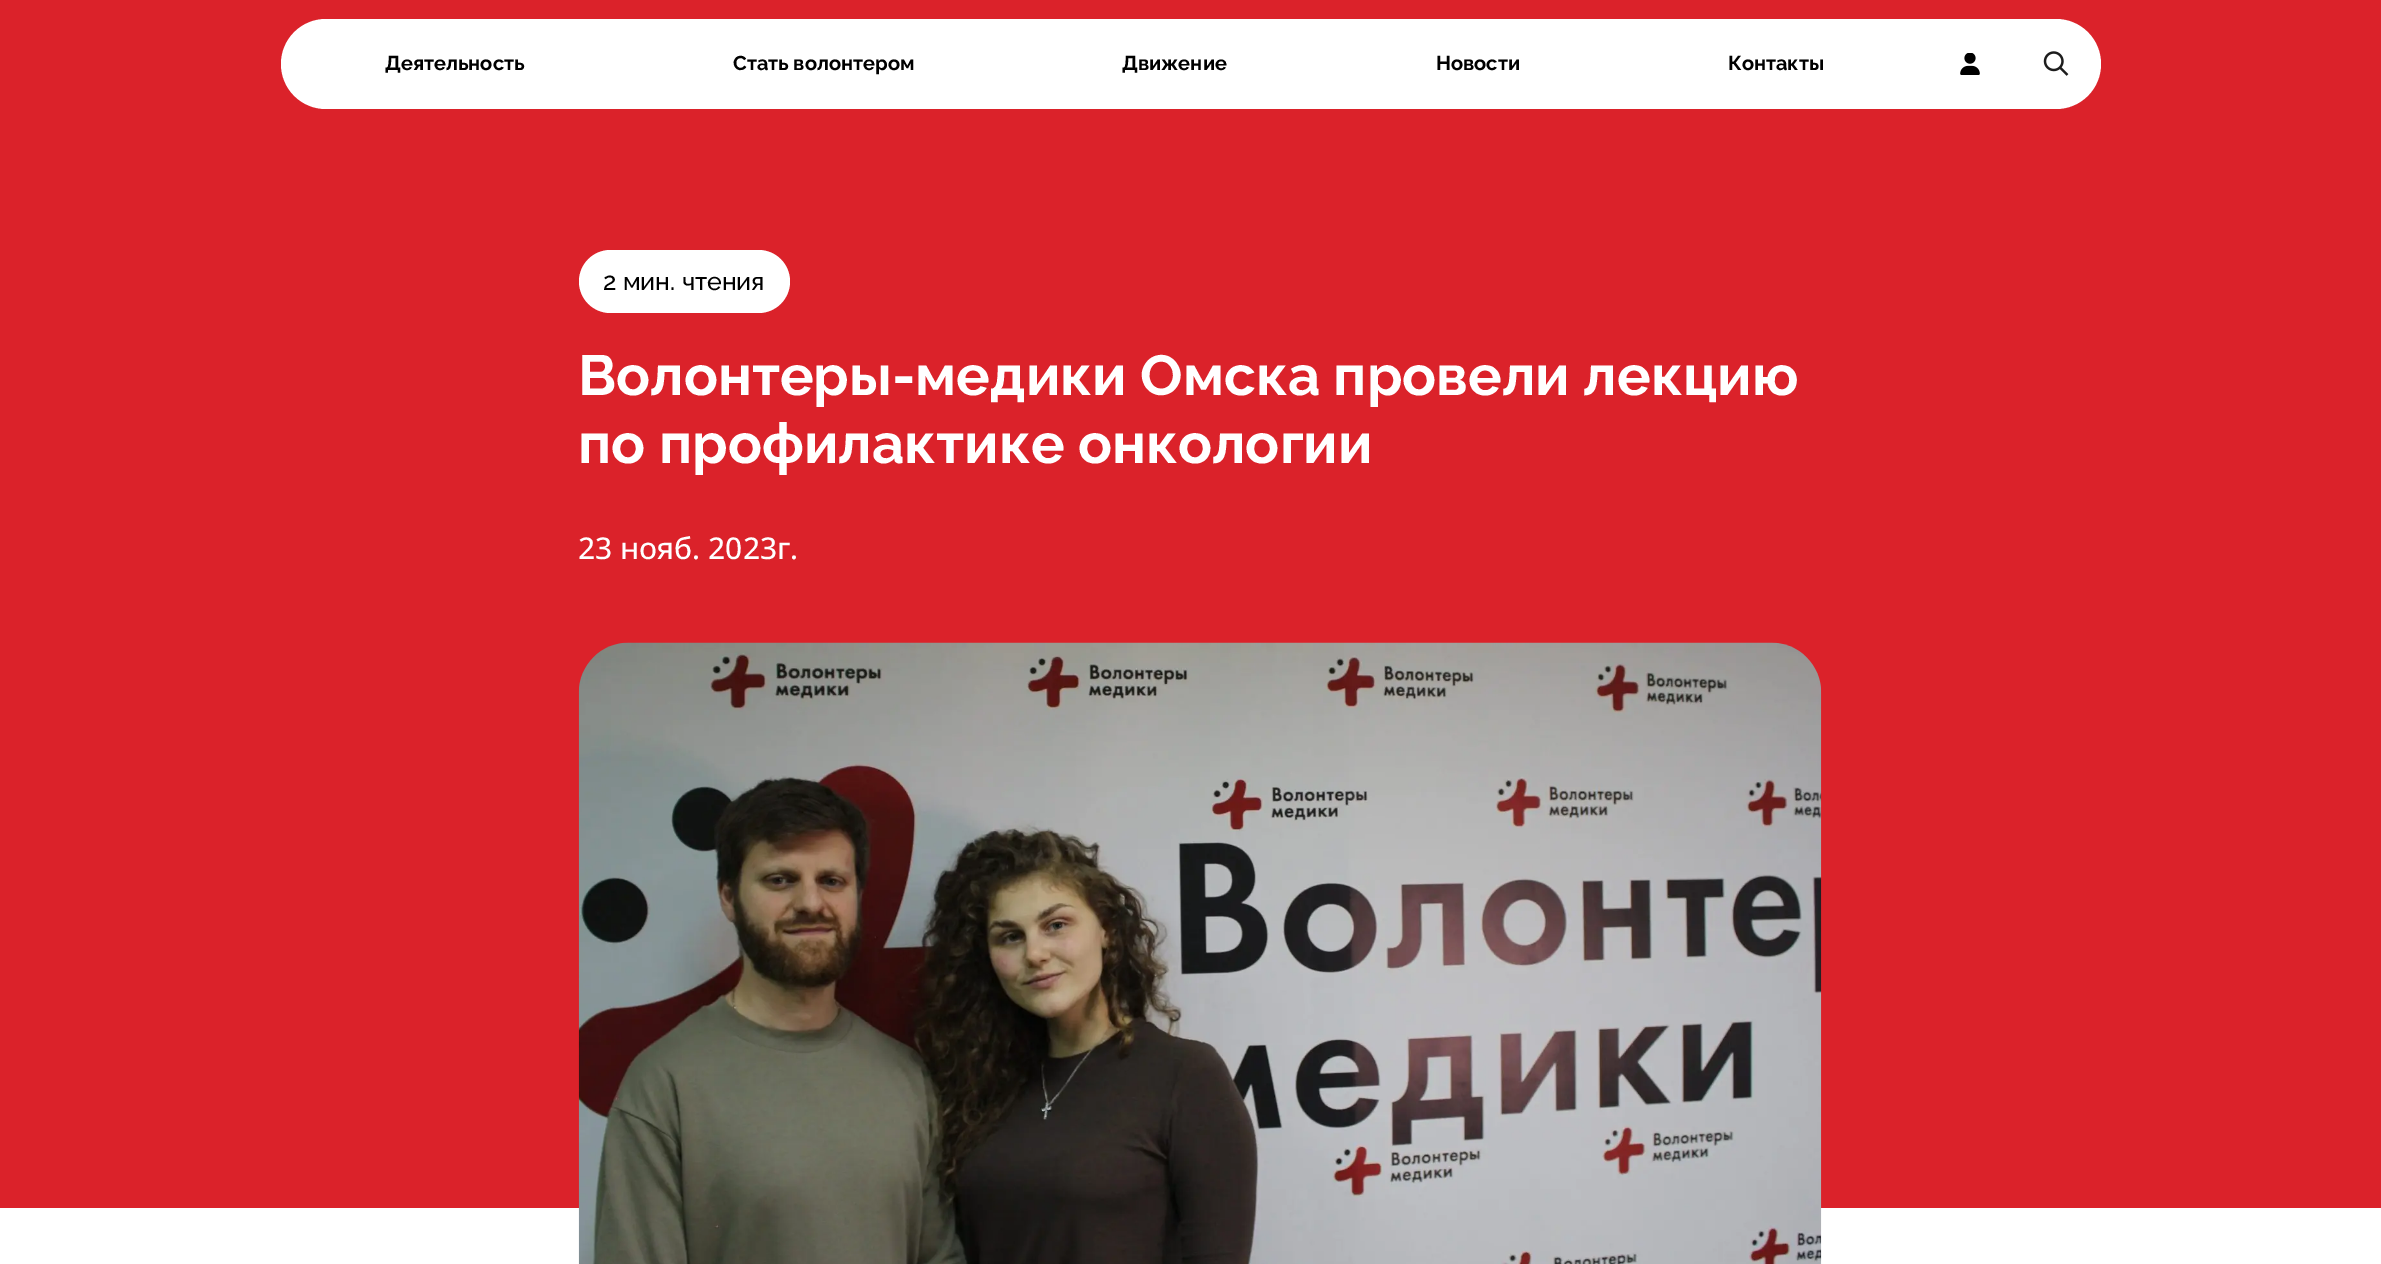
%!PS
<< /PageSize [2381 1264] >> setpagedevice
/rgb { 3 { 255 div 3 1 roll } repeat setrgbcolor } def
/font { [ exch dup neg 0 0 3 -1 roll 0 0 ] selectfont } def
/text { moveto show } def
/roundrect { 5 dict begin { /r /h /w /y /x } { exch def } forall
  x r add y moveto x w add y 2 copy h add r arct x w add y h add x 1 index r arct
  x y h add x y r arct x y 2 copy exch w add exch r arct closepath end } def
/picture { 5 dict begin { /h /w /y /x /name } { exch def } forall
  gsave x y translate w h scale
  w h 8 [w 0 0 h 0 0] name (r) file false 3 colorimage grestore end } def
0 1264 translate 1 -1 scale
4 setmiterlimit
255 255 255 rgb
0 0 2381 1264 rectfill
219 34 42 rgb
0 0 2381 1208 rectfill
255 255 255 rgb
281 19 1820 90 45 roundrect fill
(img_01.rgb) 1960 53 20 22 picture
(img_02.rgb) 2043 51 26 25 picture
579 250 211 63 31.5 roundrect fill
(img_03.rgb) 578 642 1244 622 picture
/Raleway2-Thin 20 font
0 0 0 rgb
(Деятельность) 385 70 text
(Стать волонтером) 733 70 text
(Движение) 1122 70 text
(Новости) 1436 70 text
(Контакты) 1728 70 text
/Raleway-Thin 25 font
(2 мин. чтения) 603 290 text
/Raleway2-Thin 56.25 font
255 255 255 rgb
(Волонтеры-медики Омска провели лекцию) 578 395 text
(по профилактике онкологии) 578 463 text
/OpenSans-Medium 30 font
(23 нояб. 2023г.) 578 559 text
showpage
